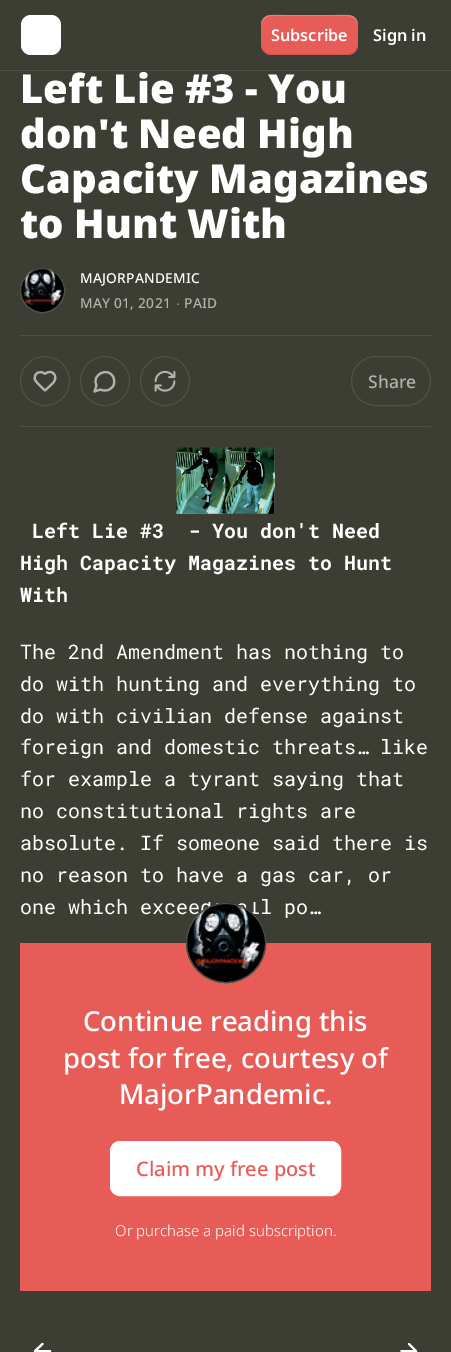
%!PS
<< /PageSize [451 1352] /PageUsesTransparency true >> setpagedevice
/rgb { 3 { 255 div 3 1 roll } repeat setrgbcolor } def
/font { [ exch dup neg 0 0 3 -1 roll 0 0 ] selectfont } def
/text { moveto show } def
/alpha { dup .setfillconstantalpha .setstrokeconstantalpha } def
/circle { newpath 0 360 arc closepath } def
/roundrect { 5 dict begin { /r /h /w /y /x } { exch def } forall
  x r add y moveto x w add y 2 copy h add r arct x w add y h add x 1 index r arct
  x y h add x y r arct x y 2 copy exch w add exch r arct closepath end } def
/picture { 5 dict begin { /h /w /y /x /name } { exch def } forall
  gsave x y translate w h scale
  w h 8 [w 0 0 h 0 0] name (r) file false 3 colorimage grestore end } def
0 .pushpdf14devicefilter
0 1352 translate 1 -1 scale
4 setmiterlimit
60 61 51 rgb
0 0 451 1352 rectfill
80 80 71 rgb
0 70 451 1 rectfill
255 255 255 rgb
21 15 40 40 10 roundrect fill
232 92 87 rgb
261 15 97 40 10 roundrect fill
0.1 alpha
0 0 0 rgb
261 44 moveto 0 14 13 11 23 11 rcurveto 51 0 rlineto 10 0 23 3 23 -11 rcurveto 0 5 -5 10 -10 10 rcurveto -77 0 rlineto -5 0 -10 -5 -10 -10 rcurveto closepath fill
0.2 alpha
255 255 255 rgb
271 16 moveto 77 0 rlineto 5 0 10 5 10 10 rcurveto 0 -14 -13 -11 -23 -11 rcurveto -51 0 rlineto -10 0 -23 -3 -23 11 rcurveto 0 -5 5 -10 10 -10 rcurveto closepath fill
1 alpha
80 80 71 rgb
42.5 290.5 22 circle stroke
(img_01.rgb) 20 267 45 46 picture
42.5 290.5 22 circle stroke
20 335 411 1 rectfill
20 426 411 1 rectfill
45 381 24.5 circle stroke
177 177 173 rgb
2.1 setlinewidth
1 setlinecap
1 setlinejoin
52.5 383.5 moveto 7.5 -7.5 -1.5 -15.5 -7.5 -9.5 rcurveto -4.5 -4.5 -12 -1 -10 5.5 rcurveto 1 3 7.5 8.5 10 11 rcurveto closepath stroke
80 80 71 rgb
1 setlinewidth
0 setlinecap
0 setlinejoin
105 381 24.5 circle stroke
177 177 173 rgb
2.1 setlinewidth
1 setlinecap
1 setlinejoin
100.5 389.5 moveto 5 2.5 10.5 0.5 13 -4 rcurveto 1 -2.5 1 -5.5 0 -8 rcurveto -5 -11.5 -22.5 -3 -17 8 rcurveto -2 6 rlineto closepath stroke
80 80 71 rgb
1 setlinewidth
0 setlinecap
0 setlinejoin
165 381 24.5 circle stroke
(img_02.rgb) 154 370 22 22 picture
351.5 356.5 79 49 24.5 roundrect stroke
(img_03.rgb) 176 447 99 67 picture
232 92 87 rgb
20 943 411 348 rectfill
255 255 255 rgb
110.5 1141.5 230 54 9.5 roundrect gsave fill grestore
stroke
2.1 setlinewidth
1 setlinecap
1 setlinejoin
42.5 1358.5 moveto -7.5 -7.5 rlineto 7.5 -7 rlineto 50 1351 moveto -15 0 rlineto stroke
401.5 1351 moveto 14.5 0 rlineto 409 1344 moveto 7 7 rlineto -7 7.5 rlineto stroke
/NotoSans-SemiBold 16.25 font
(Subscribe) 271 41 text
(Sign in) 373 41 text
/NotoSans-Black 40 font
(Left Lie #3 - You) 20 103 text
(don't Need High) 20 148 text
(Capacity Magazines) 20 193 text
(to Hunt With) 20 238 text
/NotoSans-Medium 13.75 font
80 283 moveto 0.25 0 (MAJORPANDEMIC) ashow
177 177 173 rgb
80 308 moveto 0.25 0 (MAY 01, 2021) ashow
/LiberationSans-Regular 13.75 font
176 308 moveto 0.25 0 (∙) ashow
/NotoSans-Medium 13.75 font
184 308 moveto 0.25 0 (PAID) ashow
/NotoSans-Medium 17.5 font
(Share) 368 388 text
/RobotoMono-Bold 20 font
255 255 255 rgb
(Left Lie #3  - You don't Need) 32 538 text
(High Capacity Magazines to Hunt) 20 570 text
(With) 20 602 text
/RobotoMono-Regular 20 font
(The 2nd Amendment has nothing to) 20 659 text
(do with hunting and everything to) 20 691 text
(do with civilian defense against) 20 723 text
(foreign and domestic threats… like) 20 754 text
(for example a tyrant saying that) 20 786 text
(no constitutional rights are) 20 818 text
(absolute. If someone said there is) 20 850 text
(no reason to have a gas car, or) 20 882 text
(one which excee) 20 914 text
(l po…) 260 914 text
80 80 71 rgb
1 setlinewidth
0 setlinecap
0 setlinejoin
226 943 39.5 circle stroke
(img_04.rgb) 186 902 80 81 picture
226 943 39.5 circle stroke
/NotoSans-Medium 27.5 font
255 255 255 rgb
(Continue reading this) 83 1031 text
(post for free, courtesy of) 63 1068 text
(MajorPandemic.) 119 1104 text
/NotoSans-Medium 20 font
232 92 87 rgb
(Claim my free post) 136 1176 text
/NotoSans-Light 15 font
255 255 255 rgb
(Or purchase a paid subscription.) 115 1236 text
.poppdf14devicefilter showpage
